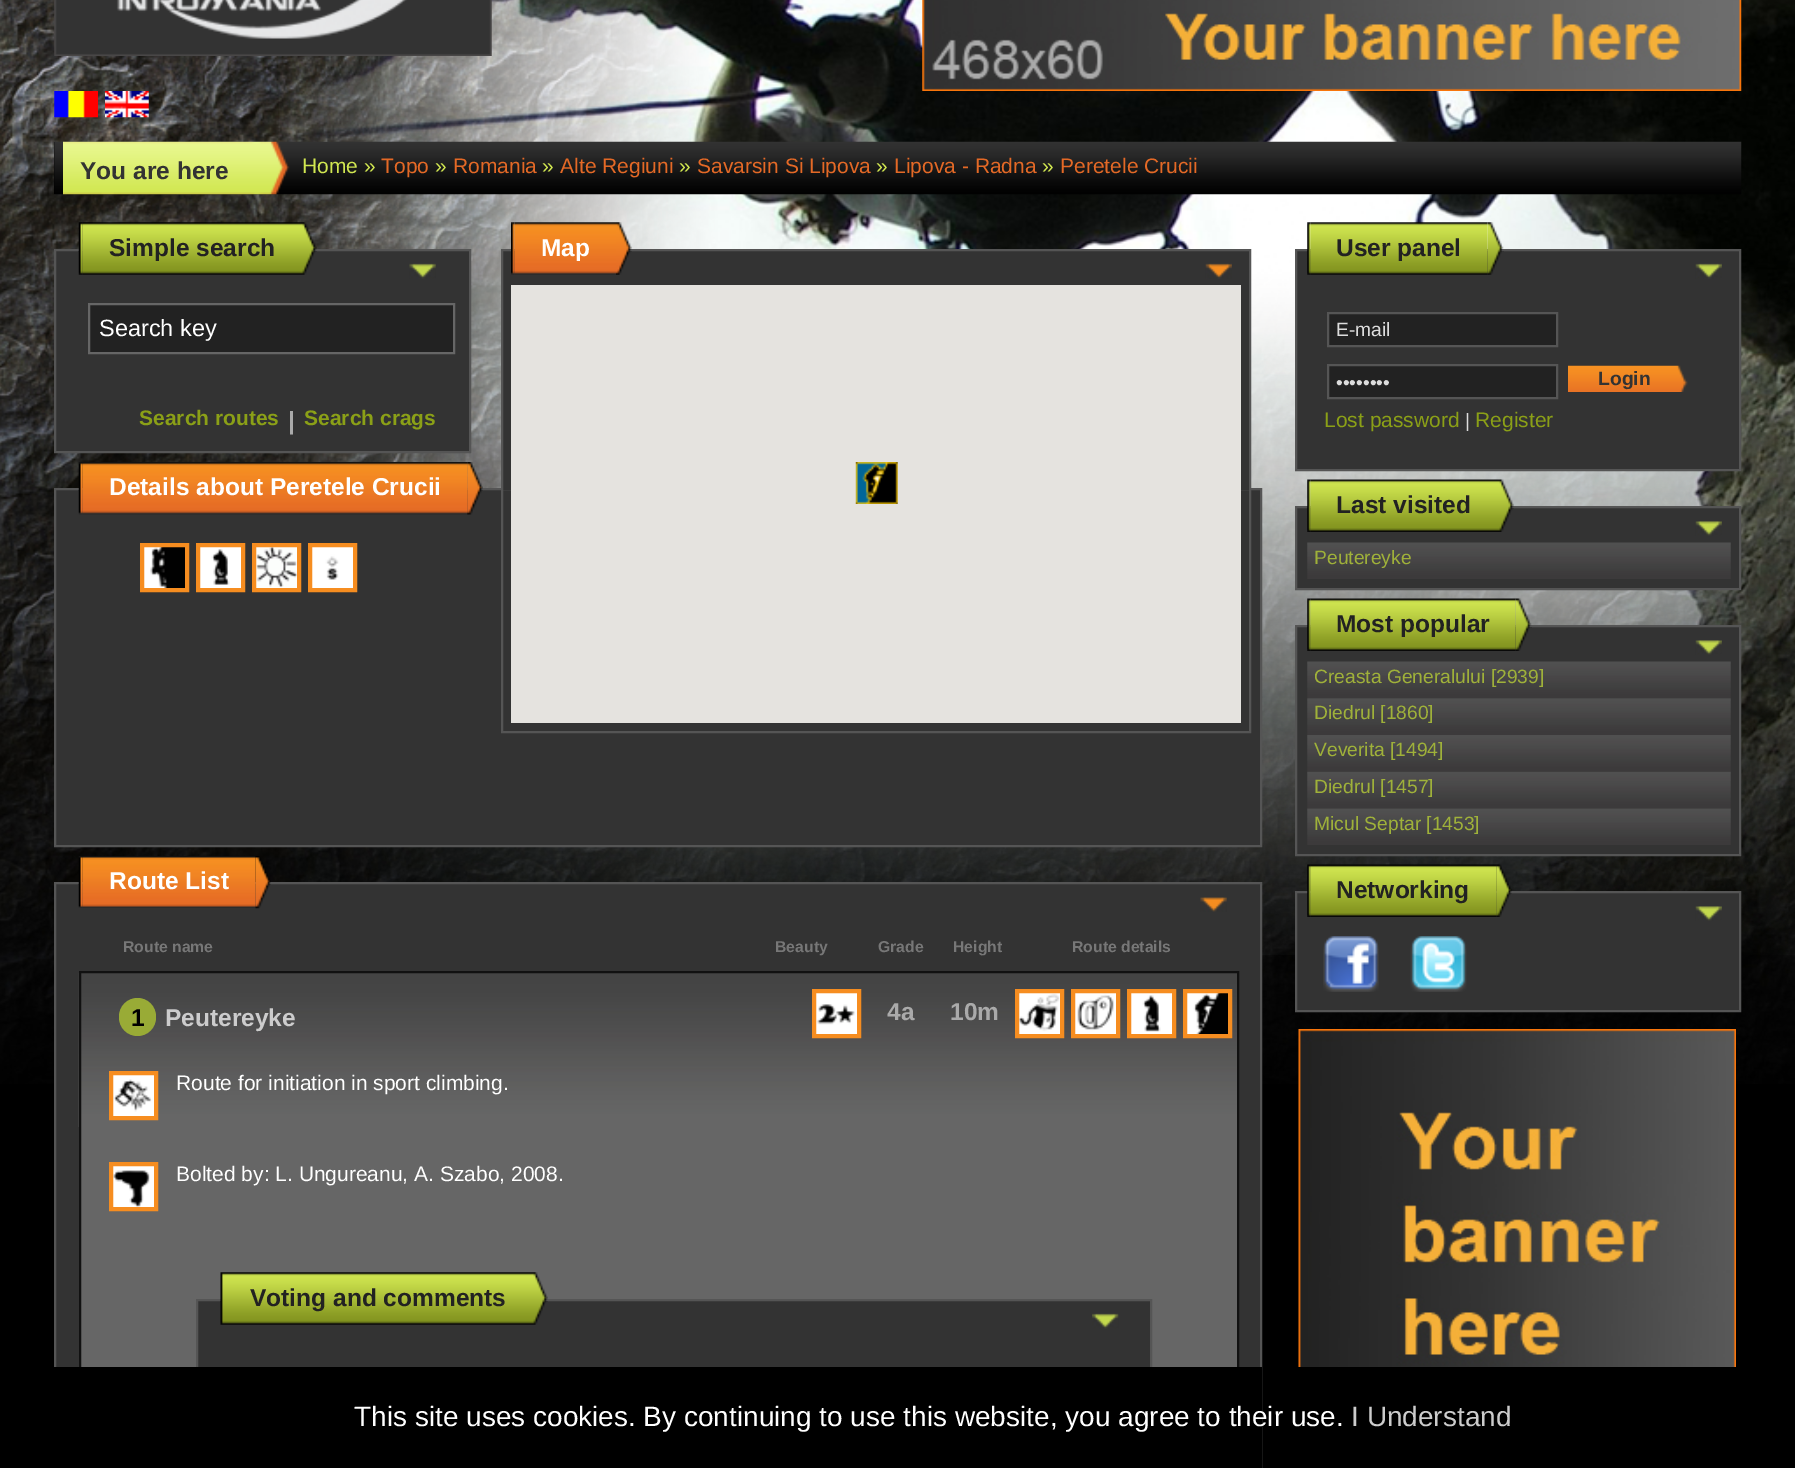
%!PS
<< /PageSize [1795 1468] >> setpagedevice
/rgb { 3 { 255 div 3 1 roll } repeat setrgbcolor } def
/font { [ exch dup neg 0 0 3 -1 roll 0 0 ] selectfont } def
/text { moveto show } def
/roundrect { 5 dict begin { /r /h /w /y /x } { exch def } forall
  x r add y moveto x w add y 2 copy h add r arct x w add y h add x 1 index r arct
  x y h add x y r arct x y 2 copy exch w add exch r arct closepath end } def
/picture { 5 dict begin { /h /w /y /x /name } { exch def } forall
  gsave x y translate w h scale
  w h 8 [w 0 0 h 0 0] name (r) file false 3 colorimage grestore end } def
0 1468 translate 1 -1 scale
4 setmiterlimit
0 0 0 rgb
0 0 1795 1468 rectfill
(img_01.rgb) 0 0 1795 1084 picture
(img_02.rgb) 279 0 1516 955 picture
(img_03.rgb) 54 0 438 56 picture
(img_04.rgb) 922 0 820 91 picture
(img_05.rgb) 54 91 44 27 picture
(img_06.rgb) 105 91 44 27 picture
(img_07.rgb) 54 141 1688 54 picture
(img_08.rgb) 63 141 227 54 picture
51 51 51 rgb
55 250 moveto 415 0 rlineto 0 202 rlineto -415 0 rlineto closepath gsave fill grestore
85 85 85 rgb
2 setlinewidth
stroke
(img_09.rgb) 78 222 5 53 picture
(img_10.rgb) 82 222 219 53 picture
(img_11.rgb) 301 222 16 53 picture
(img_12.rgb) 409 263 27 16 picture
34 34 34 rgb
89 304 moveto 365 0 rlineto 0 49 rlineto -365 0 rlineto closepath gsave fill grestore
102 102 102 rgb
stroke
51 51 51 rgb
55 489 moveto 1206 0 rlineto 0 357 rlineto -1206 0 rlineto closepath gsave fill grestore
85 85 85 rgb
stroke
51 51 51 rgb
503 251 746 239 rectfill
85 85 85 rgb
502 250 748 482 rectstroke
(img_13.rgb) 511 222 4 53 picture
(img_14.rgb) 514 222 102 53 picture
(img_15.rgb) 616 222 16 53 picture
(img_16.rgb) 1205 263 27 16 picture
229 227 223 rgb
511 285 730 438 rectfill
(img_17.rgb) 855 462 43 42 picture
(img_18.rgb) 78 462 5 53 picture
(img_19.rgb) 82 462 386 53 picture
(img_20.rgb) 467 462 16 53 picture
(img_21.rgb) 144 547 41 41 picture
246 141 32 rgb
4 setlinewidth
142 545 45 45 rectstroke
(img_22.rgb) 200 547 41 41 picture
198 545 45 45 rectstroke
(img_23.rgb) 256 547 41 41 picture
254 545 45 45 rectstroke
(img_24.rgb) 312 547 41 41 picture
310 545 45 45 rectstroke
51 51 51 rgb
56 884 1204 483 rectfill
85 85 85 rgb
2 setlinewidth
55 883 1206 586 rectstroke
(img_25.rgb) 78 856 5 52 picture
(img_26.rgb) 82 856 174 52 picture
(img_27.rgb) 255 856 16 53 picture
(img_28.rgb) 1200 897 27 15 picture
102 102 102 rgb
81 1127 1156 240 rectfill
(img_29.rgb) 78 973 1159 154 picture
17 17 17 rgb
80 972 1158 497 rectstroke
153 171 54 rgb
119 998 37 38 18.5 roundrect fill
(img_30.rgb) 816 993 41 41 picture
246 141 32 rgb
4 setlinewidth
814 991 45 45 rectstroke
(img_31.rgb) 1019 993 41 41 picture
1017 991 45 45 rectstroke
(img_32.rgb) 1075 993 41 41 picture
1073 991 45 45 rectstroke
(img_33.rgb) 1131 993 41 41 picture
1129 991 45 45 rectstroke
(img_34.rgb) 1187 993 41 41 picture
1185 991 45 45 rectstroke
(img_35.rgb) 113 1075 41 41 picture
111 1073 45 45 rectstroke
(img_36.rgb) 113 1166 41 41 picture
111 1164 45 45 rectstroke
51 51 51 rgb
198 1301 952 66 rectfill
85 85 85 rgb
2 setlinewidth
197 1300 954 111 rectstroke
(img_37.rgb) 220 1272 4 53 picture
(img_38.rgb) 224 1272 308 53 picture
(img_39.rgb) 532 1272 16 53 picture
(img_40.rgb) 1092 1313 27 16 picture
51 51 51 rgb
1296 250 moveto 444 0 rlineto 0 220 rlineto -444 0 rlineto closepath gsave fill grestore
85 85 85 rgb
stroke
(img_41.rgb) 1307 222 4 53 picture
(img_42.rgb) 1310 222 178 53 picture
(img_43.rgb) 1487 222 17 53 picture
(img_44.rgb) 1695 263 27 16 picture
34 34 34 rgb
1328 313 moveto 229 0 rlineto 0 33 rlineto -229 0 rlineto closepath gsave fill grestore
85 85 85 rgb
stroke
34 34 34 rgb
1328 365 moveto 229 0 rlineto 0 33 rlineto -229 0 rlineto closepath gsave fill grestore
85 85 85 rgb
stroke
(img_45.rgb) 1568 365 120 27 picture
51 51 51 rgb
1296 507 moveto 444 0 rlineto 0 82 rlineto -444 0 rlineto closepath gsave fill grestore
85 85 85 rgb
stroke
(img_46.rgb) 1307 479 4 53 picture
(img_47.rgb) 1310 479 188 53 picture
(img_48.rgb) 1498 479 16 53 picture
(img_49.rgb) 1695 521 27 15 picture
(img_50.rgb) 1307 542 424 37 picture
51 51 51 rgb
1296 626 moveto 444 0 rlineto 0 229 rlineto -444 0 rlineto closepath gsave fill grestore
85 85 85 rgb
stroke
(img_51.rgb) 1307 598 4 53 picture
(img_52.rgb) 1310 598 206 53 picture
(img_53.rgb) 1515 598 17 53 picture
(img_49.rgb) 1695 640 27 15 picture
(img_50.rgb) 1307 661 424 37 picture
(img_54.rgb) 1307 698 424 37 picture
(img_55.rgb) 1307 735 424 37 picture
(img_56.rgb) 1307 771 424 38 picture
(img_57.rgb) 1307 808 424 37 picture
51 51 51 rgb
1296 892 moveto 444 0 rlineto 0 119 rlineto -444 0 rlineto closepath gsave fill grestore
85 85 85 rgb
stroke
(img_58.rgb) 1307 864 4 53 picture
(img_59.rgb) 1310 864 187 53 picture
(img_60.rgb) 1496 864 16 53 picture
(img_49.rgb) 1695 906 27 15 picture
(img_61.rgb) 1323 936 56 56 picture
(img_62.rgb) 1410 936 57 56 picture
(img_63.rgb) 1298 1029 438 338 picture
0 0 0 rgb
54 1367 1208 101 rectfill
/LiberationSans-Bold 24.5 font
51 51 51 rgb
(You are here) 80 179 text
/LiberationSans-Regular 21 font
209 231 81 rgb
(Home ») 302 173 text
228 105 38 rgb
(Topo) 381 173 text
209 231 81 rgb
(») 435 173 text
228 105 38 rgb
(Romania) 453 173 text
209 231 81 rgb
(») 542 173 text
228 105 38 rgb
(Alte Regiuni) 560 173 text
209 231 81 rgb
(») 679 173 text
228 105 38 rgb
(Savarsin Si Lipova) 697 173 text
209 231 81 rgb
(») 876 173 text
228 105 38 rgb
(Lipova - Radna) 894 173 text
209 231 81 rgb
(») 1042 173 text
228 105 38 rgb
(Peretele Crucii) 1060 173 text
/LiberationSans-Bold 24.5 font
34 34 34 rgb
(Simple search) 109 256 text
/LiberationSans-Regular 23.5 font
255 255 255 rgb
(Search key) 99 336 text
/LiberationSans-Bold 21 font
139 160 23 rgb
(Search routes) 139 425 text
/LiberationSans-Bold 25 font
170 170 170 rgb
(|) 288 429 text
/LiberationSans-Bold 21 font
139 160 23 rgb
(Search crags) 304 425 text
/LiberationSans-Bold 24.5 font
255 255 255 rgb
(Map) 541 256 text
(Details about Peretele Crucii) 109 495 text
(Route List) 109 889 text
/LiberationSans-Bold 15.75 font
119 119 119 rgb
(Route name) 123 952 text
(Beauty) 775 952 text
(Grade) 878 952 text
(Height) 953 952 text
(Route details) 1072 952 text
/LiberationSans-Bold 24.5 font
0 0 0 rgb
(1) 131 1026 text
204 204 204 rgb
(Peutereyke) 165 1026 text
170 170 170 rgb
(4a) 887 1020 text
(10m) 950 1020 text
/LiberationSans-Regular 21 font
255 255 255 rgb
(Route for initiation in sport climbing.) 176 1090 text
(Bolted by: L. Ungureanu, A. Szabo, 2008.) 176 1181 text
/LiberationSans-Bold 24.5 font
34 34 34 rgb
(Voting and comments) 250 1306 text
(User panel) 1336 256 text
/LiberationSans-Regular 19.25 font
221 221 221 rgb
(E-mail) 1336 336 text
(••••••••) 1336 389 text
/LiberationSans-Bold 19.25 font
51 51 51 rgb
(Login) 1598 385 text
/LiberationSans-Regular 21 font
139 160 23 rgb
(Lost password) 1324 427 text
/LiberationSans-Regular 19.25 font
221 221 221 rgb
(|) 1465 427 text
/LiberationSans-Regular 21 font
139 160 23 rgb
(Register) 1475 427 text
/LiberationSans-Bold 24.5 font
34 34 34 rgb
(Last visited) 1336 513 text
/LiberationSans-Regular 19.25 font
159 177 58 rgb
(Peutereyke) 1314 564 text
/LiberationSans-Bold 24.5 font
34 34 34 rgb
(Most popular) 1336 632 text
/LiberationSans-Regular 19.25 font
159 177 58 rgb
(Creasta Generalului [2939]) 1314 683 text
(Diedrul [1860]) 1314 719 text
(Veverita [1494]) 1314 756 text
(Diedrul [1457]) 1314 793 text
(Micul Septar [1453]) 1314 830 text
/LiberationSans-Bold 24.5 font
34 34 34 rgb
(Networking) 1336 898 text
/LiberationSans-Regular 28 font
255 255 255 rgb
(This site uses cookies. By continuing to use this website, you agree to their use.) 354 1426 text
204 204 204 rgb
(I Understand) 1351 1426 text
showpage
